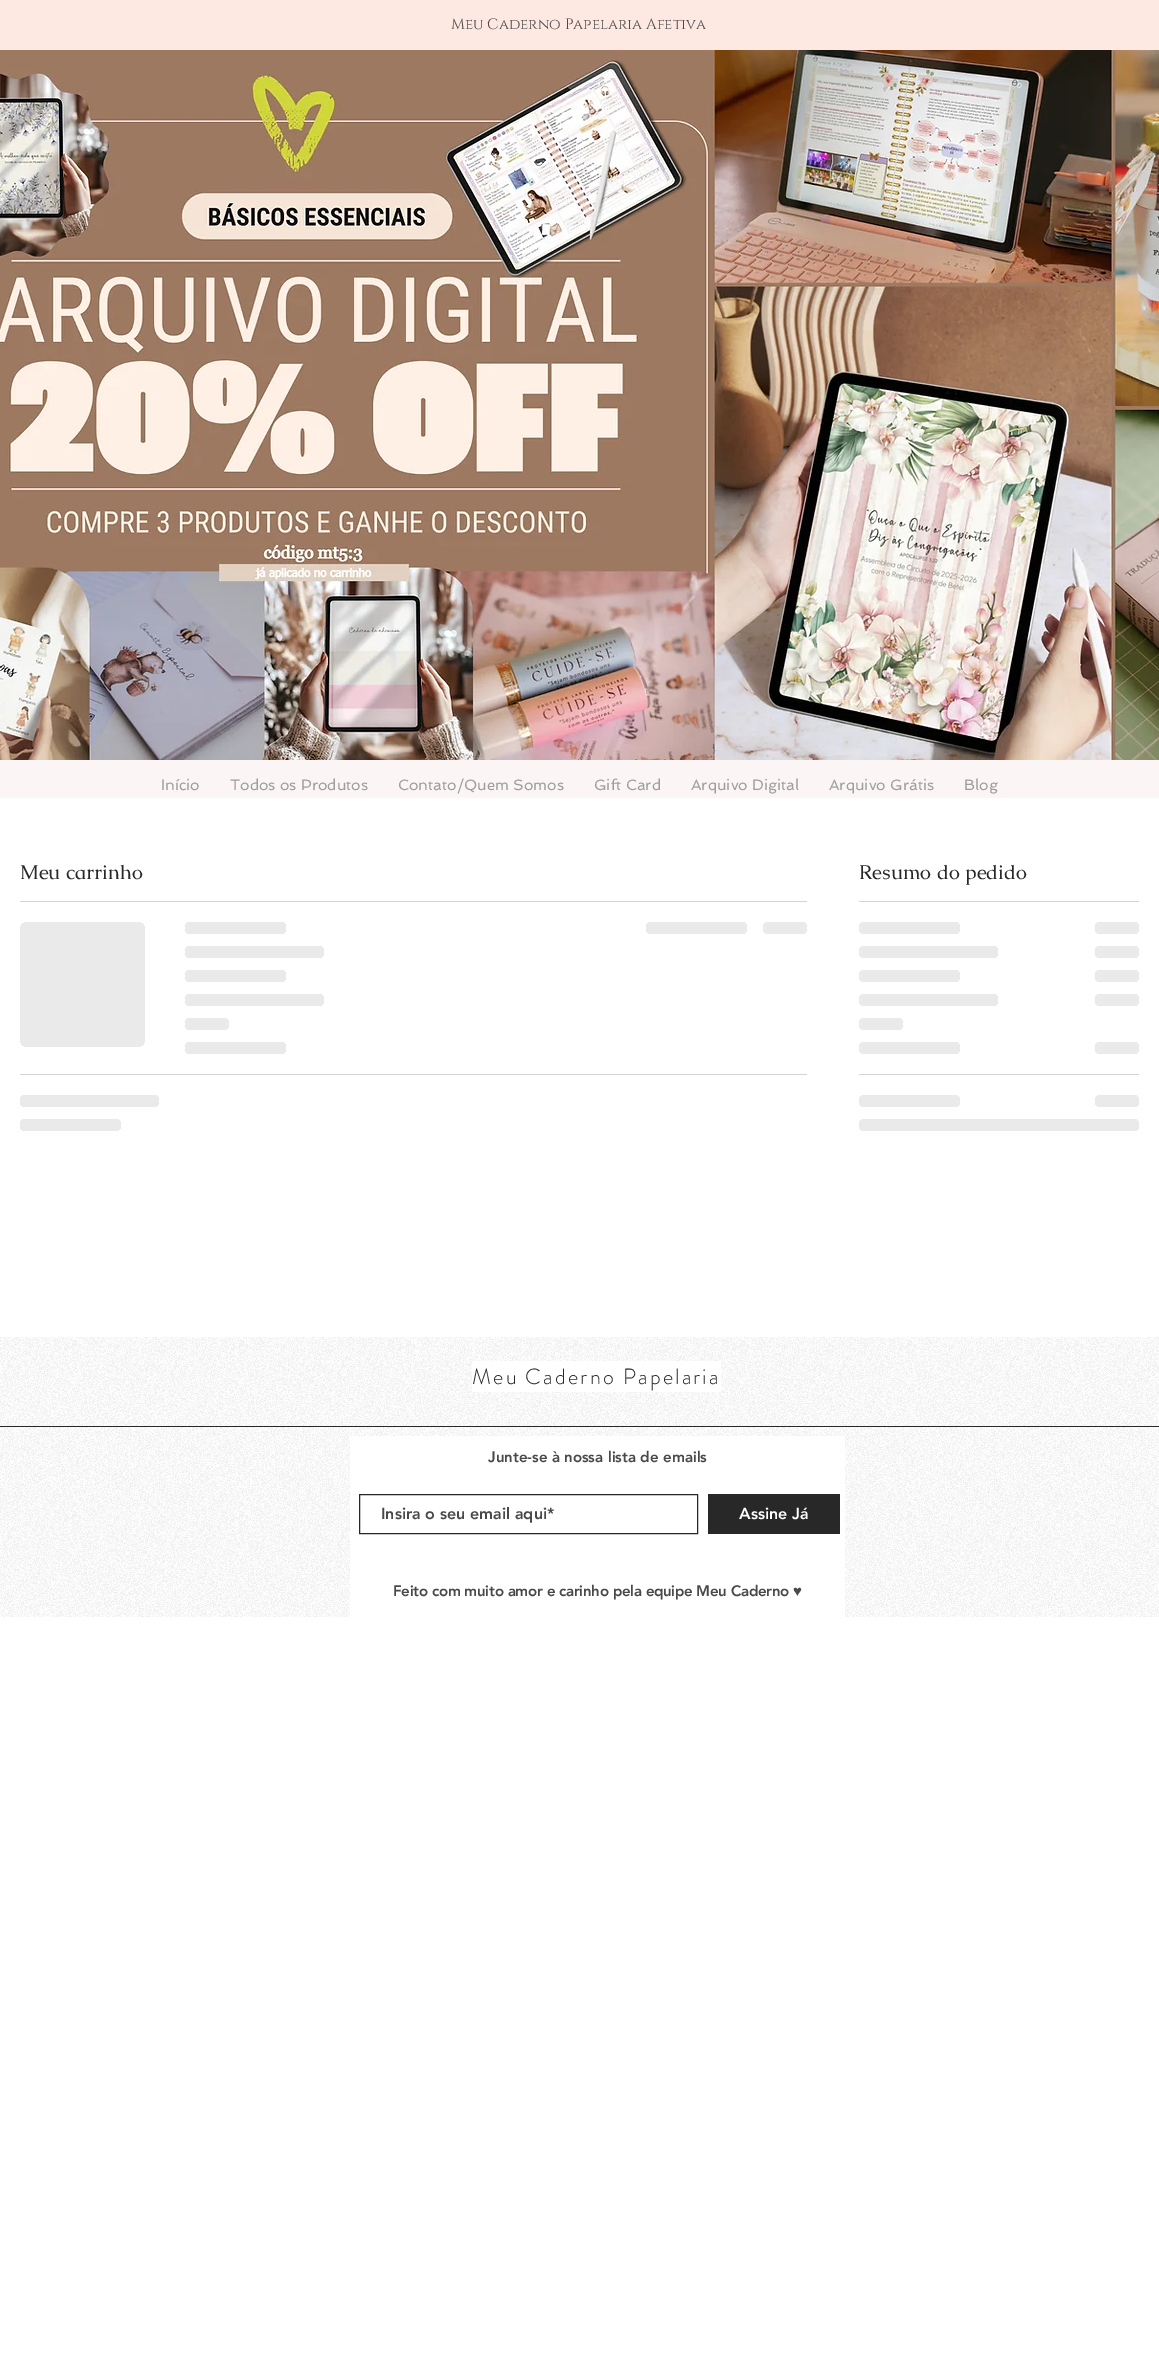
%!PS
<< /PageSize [1159 2380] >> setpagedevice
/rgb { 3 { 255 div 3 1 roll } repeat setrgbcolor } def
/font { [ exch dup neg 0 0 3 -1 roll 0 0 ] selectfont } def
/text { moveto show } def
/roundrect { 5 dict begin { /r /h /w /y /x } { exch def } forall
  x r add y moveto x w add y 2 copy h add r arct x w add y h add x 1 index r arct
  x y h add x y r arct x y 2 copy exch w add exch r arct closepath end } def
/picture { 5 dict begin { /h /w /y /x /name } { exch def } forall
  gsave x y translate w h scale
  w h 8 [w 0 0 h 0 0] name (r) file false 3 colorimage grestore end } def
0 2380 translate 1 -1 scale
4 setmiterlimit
255 255 255 rgb
0 0 1159 2380 rectfill
254 232 226 rgb
0 0 1159 50 rectfill
(img_01.rgb) 0 50 1159 710 picture
251 246 245 rgb
0 760 1159 38 rectfill
212 212 212 rgb
20 901 787 1 rectfill
gsave 20 922 125 125 8 roundrect clip newpath
<< /ShadingType 2 /ColorSpace /DeviceRGB /Coords [20 985 520 985] /Extend [true true] /Function << /FunctionType 3 /Domain [0 1] /Functions [<< /FunctionType 2 /Domain [0 1] /C0 [0.918 0.918 0.918] /C1 [0.918 0.918 0.918] /N 1 >> << /FunctionType 2 /Domain [0 1] /C0 [0.918 0.918 0.918] /C1 [0.831 0.831 0.831] /N 1 >> << /FunctionType 2 /Domain [0 1] /C0 [0.831 0.831 0.831] /C1 [0.918 0.918 0.918] /N 1 >> << /FunctionType 2 /Domain [0 1] /C0 [0.918 0.918 0.918] /C1 [0.918 0.918 0.918] /N 1 >>] /Bounds [0.25 0.37 0.63] /Encode [0 1 0 1 0 1 0 1] >> >> shfill grestore
gsave 185 922 101 12 6 roundrect clip newpath
<< /ShadingType 2 /ColorSpace /DeviceRGB /Coords [185 928 589 928] /Extend [true true] /Function << /FunctionType 3 /Domain [0 1] /Functions [<< /FunctionType 2 /Domain [0 1] /C0 [0.918 0.918 0.918] /C1 [0.918 0.918 0.918] /N 1 >> << /FunctionType 2 /Domain [0 1] /C0 [0.918 0.918 0.918] /C1 [0.831 0.831 0.831] /N 1 >> << /FunctionType 2 /Domain [0 1] /C0 [0.831 0.831 0.831] /C1 [0.918 0.918 0.918] /N 1 >> << /FunctionType 2 /Domain [0 1] /C0 [0.918 0.918 0.918] /C1 [0.918 0.918 0.918] /N 1 >>] /Bounds [0.25 0.37 0.63] /Encode [0 1 0 1 0 1 0 1] >> >> shfill grestore
gsave 185 946 139 12 6 roundrect clip newpath
<< /ShadingType 2 /ColorSpace /DeviceRGB /Coords [185 952 741 952] /Extend [true true] /Function << /FunctionType 3 /Domain [0 1] /Functions [<< /FunctionType 2 /Domain [0 1] /C0 [0.918 0.918 0.918] /C1 [0.918 0.918 0.918] /N 1 >> << /FunctionType 2 /Domain [0 1] /C0 [0.918 0.918 0.918] /C1 [0.831 0.831 0.831] /N 1 >> << /FunctionType 2 /Domain [0 1] /C0 [0.831 0.831 0.831] /C1 [0.918 0.918 0.918] /N 1 >> << /FunctionType 2 /Domain [0 1] /C0 [0.918 0.918 0.918] /C1 [0.918 0.918 0.918] /N 1 >>] /Bounds [0.25 0.37 0.63] /Encode [0 1 0 1 0 1 0 1] >> >> shfill grestore
gsave 185 970 101 12 6 roundrect clip newpath
<< /ShadingType 2 /ColorSpace /DeviceRGB /Coords [185 976 589 976] /Extend [true true] /Function << /FunctionType 3 /Domain [0 1] /Functions [<< /FunctionType 2 /Domain [0 1] /C0 [0.918 0.918 0.918] /C1 [0.918 0.918 0.918] /N 1 >> << /FunctionType 2 /Domain [0 1] /C0 [0.918 0.918 0.918] /C1 [0.831 0.831 0.831] /N 1 >> << /FunctionType 2 /Domain [0 1] /C0 [0.831 0.831 0.831] /C1 [0.918 0.918 0.918] /N 1 >> << /FunctionType 2 /Domain [0 1] /C0 [0.918 0.918 0.918] /C1 [0.918 0.918 0.918] /N 1 >>] /Bounds [0.25 0.37 0.63] /Encode [0 1 0 1 0 1 0 1] >> >> shfill grestore
gsave 185 994 139 12 6 roundrect clip newpath
<< /ShadingType 2 /ColorSpace /DeviceRGB /Coords [185 1000 741 1000] /Extend [true true] /Function << /FunctionType 3 /Domain [0 1] /Functions [<< /FunctionType 2 /Domain [0 1] /C0 [0.918 0.918 0.918] /C1 [0.918 0.918 0.918] /N 1 >> << /FunctionType 2 /Domain [0 1] /C0 [0.918 0.918 0.918] /C1 [0.831 0.831 0.831] /N 1 >> << /FunctionType 2 /Domain [0 1] /C0 [0.831 0.831 0.831] /C1 [0.918 0.918 0.918] /N 1 >> << /FunctionType 2 /Domain [0 1] /C0 [0.918 0.918 0.918] /C1 [0.918 0.918 0.918] /N 1 >>] /Bounds [0.25 0.37 0.63] /Encode [0 1 0 1 0 1 0 1] >> >> shfill grestore
gsave 185 1018 44 12 6 roundrect clip newpath
<< /ShadingType 2 /ColorSpace /DeviceRGB /Coords [185 1024 361 1024] /Extend [true true] /Function << /FunctionType 3 /Domain [0 1] /Functions [<< /FunctionType 2 /Domain [0 1] /C0 [0.918 0.918 0.918] /C1 [0.918 0.918 0.918] /N 1 >> << /FunctionType 2 /Domain [0 1] /C0 [0.918 0.918 0.918] /C1 [0.831 0.831 0.831] /N 1 >> << /FunctionType 2 /Domain [0 1] /C0 [0.831 0.831 0.831] /C1 [0.918 0.918 0.918] /N 1 >> << /FunctionType 2 /Domain [0 1] /C0 [0.918 0.918 0.918] /C1 [0.918 0.918 0.918] /N 1 >>] /Bounds [0.25 0.37 0.63] /Encode [0 1 0 1 0 1 0 1] >> >> shfill grestore
gsave 185 1042 101 12 6 roundrect clip newpath
<< /ShadingType 2 /ColorSpace /DeviceRGB /Coords [185 1048 589 1048] /Extend [true true] /Function << /FunctionType 3 /Domain [0 1] /Functions [<< /FunctionType 2 /Domain [0 1] /C0 [0.918 0.918 0.918] /C1 [0.918 0.918 0.918] /N 1 >> << /FunctionType 2 /Domain [0 1] /C0 [0.918 0.918 0.918] /C1 [0.831 0.831 0.831] /N 1 >> << /FunctionType 2 /Domain [0 1] /C0 [0.831 0.831 0.831] /C1 [0.918 0.918 0.918] /N 1 >> << /FunctionType 2 /Domain [0 1] /C0 [0.918 0.918 0.918] /C1 [0.918 0.918 0.918] /N 1 >>] /Bounds [0.25 0.37 0.63] /Encode [0 1 0 1 0 1 0 1] >> >> shfill grestore
gsave 646 922 101 12 6 roundrect clip newpath
<< /ShadingType 2 /ColorSpace /DeviceRGB /Coords [646 928 1050 928] /Extend [true true] /Function << /FunctionType 3 /Domain [0 1] /Functions [<< /FunctionType 2 /Domain [0 1] /C0 [0.918 0.918 0.918] /C1 [0.918 0.918 0.918] /N 1 >> << /FunctionType 2 /Domain [0 1] /C0 [0.918 0.918 0.918] /C1 [0.831 0.831 0.831] /N 1 >> << /FunctionType 2 /Domain [0 1] /C0 [0.831 0.831 0.831] /C1 [0.918 0.918 0.918] /N 1 >> << /FunctionType 2 /Domain [0 1] /C0 [0.918 0.918 0.918] /C1 [0.918 0.918 0.918] /N 1 >>] /Bounds [0.25 0.37 0.63] /Encode [0 1 0 1 0 1 0 1] >> >> shfill grestore
gsave 763 922 44 12 6 roundrect clip newpath
<< /ShadingType 2 /ColorSpace /DeviceRGB /Coords [763 928 939 928] /Extend [true true] /Function << /FunctionType 3 /Domain [0 1] /Functions [<< /FunctionType 2 /Domain [0 1] /C0 [0.918 0.918 0.918] /C1 [0.918 0.918 0.918] /N 1 >> << /FunctionType 2 /Domain [0 1] /C0 [0.918 0.918 0.918] /C1 [0.831 0.831 0.831] /N 1 >> << /FunctionType 2 /Domain [0 1] /C0 [0.831 0.831 0.831] /C1 [0.918 0.918 0.918] /N 1 >> << /FunctionType 2 /Domain [0 1] /C0 [0.918 0.918 0.918] /C1 [0.918 0.918 0.918] /N 1 >>] /Bounds [0.25 0.37 0.63] /Encode [0 1 0 1 0 1 0 1] >> >> shfill grestore
20 1074 787 1 rectfill
gsave 20 1095 139 12 6 roundrect clip newpath
<< /ShadingType 2 /ColorSpace /DeviceRGB /Coords [20 1101 576 1101] /Extend [true true] /Function << /FunctionType 3 /Domain [0 1] /Functions [<< /FunctionType 2 /Domain [0 1] /C0 [0.918 0.918 0.918] /C1 [0.918 0.918 0.918] /N 1 >> << /FunctionType 2 /Domain [0 1] /C0 [0.918 0.918 0.918] /C1 [0.831 0.831 0.831] /N 1 >> << /FunctionType 2 /Domain [0 1] /C0 [0.831 0.831 0.831] /C1 [0.918 0.918 0.918] /N 1 >> << /FunctionType 2 /Domain [0 1] /C0 [0.918 0.918 0.918] /C1 [0.918 0.918 0.918] /N 1 >>] /Bounds [0.25 0.37 0.63] /Encode [0 1 0 1 0 1 0 1] >> >> shfill grestore
gsave 20 1119 101 12 6 roundrect clip newpath
<< /ShadingType 2 /ColorSpace /DeviceRGB /Coords [20 1125 424 1125] /Extend [true true] /Function << /FunctionType 3 /Domain [0 1] /Functions [<< /FunctionType 2 /Domain [0 1] /C0 [0.918 0.918 0.918] /C1 [0.918 0.918 0.918] /N 1 >> << /FunctionType 2 /Domain [0 1] /C0 [0.918 0.918 0.918] /C1 [0.831 0.831 0.831] /N 1 >> << /FunctionType 2 /Domain [0 1] /C0 [0.831 0.831 0.831] /C1 [0.918 0.918 0.918] /N 1 >> << /FunctionType 2 /Domain [0 1] /C0 [0.918 0.918 0.918] /C1 [0.918 0.918 0.918] /N 1 >>] /Bounds [0.25 0.37 0.63] /Encode [0 1 0 1 0 1 0 1] >> >> shfill grestore
859 901 280 1 rectfill
gsave 859 922 101 12 6 roundrect clip newpath
<< /ShadingType 2 /ColorSpace /DeviceRGB /Coords [859 928 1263 928] /Extend [true true] /Function << /FunctionType 3 /Domain [0 1] /Functions [<< /FunctionType 2 /Domain [0 1] /C0 [0.918 0.918 0.918] /C1 [0.918 0.918 0.918] /N 1 >> << /FunctionType 2 /Domain [0 1] /C0 [0.918 0.918 0.918] /C1 [0.831 0.831 0.831] /N 1 >> << /FunctionType 2 /Domain [0 1] /C0 [0.831 0.831 0.831] /C1 [0.918 0.918 0.918] /N 1 >> << /FunctionType 2 /Domain [0 1] /C0 [0.918 0.918 0.918] /C1 [0.918 0.918 0.918] /N 1 >>] /Bounds [0.25 0.37 0.63] /Encode [0 1 0 1 0 1 0 1] >> >> shfill grestore
gsave 1095 922 44 12 6 roundrect clip newpath
<< /ShadingType 2 /ColorSpace /DeviceRGB /Coords [1095 928 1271 928] /Extend [true true] /Function << /FunctionType 3 /Domain [0 1] /Functions [<< /FunctionType 2 /Domain [0 1] /C0 [0.918 0.918 0.918] /C1 [0.918 0.918 0.918] /N 1 >> << /FunctionType 2 /Domain [0 1] /C0 [0.918 0.918 0.918] /C1 [0.831 0.831 0.831] /N 1 >> << /FunctionType 2 /Domain [0 1] /C0 [0.831 0.831 0.831] /C1 [0.918 0.918 0.918] /N 1 >> << /FunctionType 2 /Domain [0 1] /C0 [0.918 0.918 0.918] /C1 [0.918 0.918 0.918] /N 1 >>] /Bounds [0.25 0.37 0.63] /Encode [0 1 0 1 0 1 0 1] >> >> shfill grestore
gsave 859 946 139 12 6 roundrect clip newpath
<< /ShadingType 2 /ColorSpace /DeviceRGB /Coords [859 952 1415 952] /Extend [true true] /Function << /FunctionType 3 /Domain [0 1] /Functions [<< /FunctionType 2 /Domain [0 1] /C0 [0.918 0.918 0.918] /C1 [0.918 0.918 0.918] /N 1 >> << /FunctionType 2 /Domain [0 1] /C0 [0.918 0.918 0.918] /C1 [0.831 0.831 0.831] /N 1 >> << /FunctionType 2 /Domain [0 1] /C0 [0.831 0.831 0.831] /C1 [0.918 0.918 0.918] /N 1 >> << /FunctionType 2 /Domain [0 1] /C0 [0.918 0.918 0.918] /C1 [0.918 0.918 0.918] /N 1 >>] /Bounds [0.25 0.37 0.63] /Encode [0 1 0 1 0 1 0 1] >> >> shfill grestore
gsave 1095 946 44 12 6 roundrect clip newpath
<< /ShadingType 2 /ColorSpace /DeviceRGB /Coords [1095 952 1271 952] /Extend [true true] /Function << /FunctionType 3 /Domain [0 1] /Functions [<< /FunctionType 2 /Domain [0 1] /C0 [0.918 0.918 0.918] /C1 [0.918 0.918 0.918] /N 1 >> << /FunctionType 2 /Domain [0 1] /C0 [0.918 0.918 0.918] /C1 [0.831 0.831 0.831] /N 1 >> << /FunctionType 2 /Domain [0 1] /C0 [0.831 0.831 0.831] /C1 [0.918 0.918 0.918] /N 1 >> << /FunctionType 2 /Domain [0 1] /C0 [0.918 0.918 0.918] /C1 [0.918 0.918 0.918] /N 1 >>] /Bounds [0.25 0.37 0.63] /Encode [0 1 0 1 0 1 0 1] >> >> shfill grestore
gsave 859 970 101 12 6 roundrect clip newpath
<< /ShadingType 2 /ColorSpace /DeviceRGB /Coords [859 976 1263 976] /Extend [true true] /Function << /FunctionType 3 /Domain [0 1] /Functions [<< /FunctionType 2 /Domain [0 1] /C0 [0.918 0.918 0.918] /C1 [0.918 0.918 0.918] /N 1 >> << /FunctionType 2 /Domain [0 1] /C0 [0.918 0.918 0.918] /C1 [0.831 0.831 0.831] /N 1 >> << /FunctionType 2 /Domain [0 1] /C0 [0.831 0.831 0.831] /C1 [0.918 0.918 0.918] /N 1 >> << /FunctionType 2 /Domain [0 1] /C0 [0.918 0.918 0.918] /C1 [0.918 0.918 0.918] /N 1 >>] /Bounds [0.25 0.37 0.63] /Encode [0 1 0 1 0 1 0 1] >> >> shfill grestore
gsave 1095 970 44 12 6 roundrect clip newpath
<< /ShadingType 2 /ColorSpace /DeviceRGB /Coords [1095 976 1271 976] /Extend [true true] /Function << /FunctionType 3 /Domain [0 1] /Functions [<< /FunctionType 2 /Domain [0 1] /C0 [0.918 0.918 0.918] /C1 [0.918 0.918 0.918] /N 1 >> << /FunctionType 2 /Domain [0 1] /C0 [0.918 0.918 0.918] /C1 [0.831 0.831 0.831] /N 1 >> << /FunctionType 2 /Domain [0 1] /C0 [0.831 0.831 0.831] /C1 [0.918 0.918 0.918] /N 1 >> << /FunctionType 2 /Domain [0 1] /C0 [0.918 0.918 0.918] /C1 [0.918 0.918 0.918] /N 1 >>] /Bounds [0.25 0.37 0.63] /Encode [0 1 0 1 0 1 0 1] >> >> shfill grestore
gsave 859 994 139 12 6 roundrect clip newpath
<< /ShadingType 2 /ColorSpace /DeviceRGB /Coords [859 1000 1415 1000] /Extend [true true] /Function << /FunctionType 3 /Domain [0 1] /Functions [<< /FunctionType 2 /Domain [0 1] /C0 [0.918 0.918 0.918] /C1 [0.918 0.918 0.918] /N 1 >> << /FunctionType 2 /Domain [0 1] /C0 [0.918 0.918 0.918] /C1 [0.831 0.831 0.831] /N 1 >> << /FunctionType 2 /Domain [0 1] /C0 [0.831 0.831 0.831] /C1 [0.918 0.918 0.918] /N 1 >> << /FunctionType 2 /Domain [0 1] /C0 [0.918 0.918 0.918] /C1 [0.918 0.918 0.918] /N 1 >>] /Bounds [0.25 0.37 0.63] /Encode [0 1 0 1 0 1 0 1] >> >> shfill grestore
gsave 1095 994 44 12 6 roundrect clip newpath
<< /ShadingType 2 /ColorSpace /DeviceRGB /Coords [1095 1000 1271 1000] /Extend [true true] /Function << /FunctionType 3 /Domain [0 1] /Functions [<< /FunctionType 2 /Domain [0 1] /C0 [0.918 0.918 0.918] /C1 [0.918 0.918 0.918] /N 1 >> << /FunctionType 2 /Domain [0 1] /C0 [0.918 0.918 0.918] /C1 [0.831 0.831 0.831] /N 1 >> << /FunctionType 2 /Domain [0 1] /C0 [0.831 0.831 0.831] /C1 [0.918 0.918 0.918] /N 1 >> << /FunctionType 2 /Domain [0 1] /C0 [0.918 0.918 0.918] /C1 [0.918 0.918 0.918] /N 1 >>] /Bounds [0.25 0.37 0.63] /Encode [0 1 0 1 0 1 0 1] >> >> shfill grestore
gsave 859 1018 44 12 6 roundrect clip newpath
<< /ShadingType 2 /ColorSpace /DeviceRGB /Coords [859 1024 1035 1024] /Extend [true true] /Function << /FunctionType 3 /Domain [0 1] /Functions [<< /FunctionType 2 /Domain [0 1] /C0 [0.918 0.918 0.918] /C1 [0.918 0.918 0.918] /N 1 >> << /FunctionType 2 /Domain [0 1] /C0 [0.918 0.918 0.918] /C1 [0.831 0.831 0.831] /N 1 >> << /FunctionType 2 /Domain [0 1] /C0 [0.831 0.831 0.831] /C1 [0.918 0.918 0.918] /N 1 >> << /FunctionType 2 /Domain [0 1] /C0 [0.918 0.918 0.918] /C1 [0.918 0.918 0.918] /N 1 >>] /Bounds [0.25 0.37 0.63] /Encode [0 1 0 1 0 1 0 1] >> >> shfill grestore
gsave 859 1042 101 12 6 roundrect clip newpath
<< /ShadingType 2 /ColorSpace /DeviceRGB /Coords [859 1048 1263 1048] /Extend [true true] /Function << /FunctionType 3 /Domain [0 1] /Functions [<< /FunctionType 2 /Domain [0 1] /C0 [0.918 0.918 0.918] /C1 [0.918 0.918 0.918] /N 1 >> << /FunctionType 2 /Domain [0 1] /C0 [0.918 0.918 0.918] /C1 [0.831 0.831 0.831] /N 1 >> << /FunctionType 2 /Domain [0 1] /C0 [0.831 0.831 0.831] /C1 [0.918 0.918 0.918] /N 1 >> << /FunctionType 2 /Domain [0 1] /C0 [0.918 0.918 0.918] /C1 [0.918 0.918 0.918] /N 1 >>] /Bounds [0.25 0.37 0.63] /Encode [0 1 0 1 0 1 0 1] >> >> shfill grestore
gsave 1095 1042 44 12 6 roundrect clip newpath
<< /ShadingType 2 /ColorSpace /DeviceRGB /Coords [1095 1048 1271 1048] /Extend [true true] /Function << /FunctionType 3 /Domain [0 1] /Functions [<< /FunctionType 2 /Domain [0 1] /C0 [0.918 0.918 0.918] /C1 [0.918 0.918 0.918] /N 1 >> << /FunctionType 2 /Domain [0 1] /C0 [0.918 0.918 0.918] /C1 [0.831 0.831 0.831] /N 1 >> << /FunctionType 2 /Domain [0 1] /C0 [0.831 0.831 0.831] /C1 [0.918 0.918 0.918] /N 1 >> << /FunctionType 2 /Domain [0 1] /C0 [0.918 0.918 0.918] /C1 [0.918 0.918 0.918] /N 1 >>] /Bounds [0.25 0.37 0.63] /Encode [0 1 0 1 0 1 0 1] >> >> shfill grestore
859 1074 280 1 rectfill
gsave 859 1095 101 12 6 roundrect clip newpath
<< /ShadingType 2 /ColorSpace /DeviceRGB /Coords [859 1101 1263 1101] /Extend [true true] /Function << /FunctionType 3 /Domain [0 1] /Functions [<< /FunctionType 2 /Domain [0 1] /C0 [0.918 0.918 0.918] /C1 [0.918 0.918 0.918] /N 1 >> << /FunctionType 2 /Domain [0 1] /C0 [0.918 0.918 0.918] /C1 [0.831 0.831 0.831] /N 1 >> << /FunctionType 2 /Domain [0 1] /C0 [0.831 0.831 0.831] /C1 [0.918 0.918 0.918] /N 1 >> << /FunctionType 2 /Domain [0 1] /C0 [0.918 0.918 0.918] /C1 [0.918 0.918 0.918] /N 1 >>] /Bounds [0.25 0.37 0.63] /Encode [0 1 0 1 0 1 0 1] >> >> shfill grestore
gsave 1095 1095 44 12 6 roundrect clip newpath
<< /ShadingType 2 /ColorSpace /DeviceRGB /Coords [1095 1101 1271 1101] /Extend [true true] /Function << /FunctionType 3 /Domain [0 1] /Functions [<< /FunctionType 2 /Domain [0 1] /C0 [0.918 0.918 0.918] /C1 [0.918 0.918 0.918] /N 1 >> << /FunctionType 2 /Domain [0 1] /C0 [0.918 0.918 0.918] /C1 [0.831 0.831 0.831] /N 1 >> << /FunctionType 2 /Domain [0 1] /C0 [0.831 0.831 0.831] /C1 [0.918 0.918 0.918] /N 1 >> << /FunctionType 2 /Domain [0 1] /C0 [0.918 0.918 0.918] /C1 [0.918 0.918 0.918] /N 1 >>] /Bounds [0.25 0.37 0.63] /Encode [0 1 0 1 0 1 0 1] >> >> shfill grestore
gsave 859 1119 280 12 6 roundrect clip newpath
<< /ShadingType 2 /ColorSpace /DeviceRGB /Coords [859 1125 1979 1125] /Extend [true true] /Function << /FunctionType 3 /Domain [0 1] /Functions [<< /FunctionType 2 /Domain [0 1] /C0 [0.918 0.918 0.918] /C1 [0.918 0.918 0.918] /N 1 >> << /FunctionType 2 /Domain [0 1] /C0 [0.918 0.918 0.918] /C1 [0.831 0.831 0.831] /N 1 >> << /FunctionType 2 /Domain [0 1] /C0 [0.831 0.831 0.831] /C1 [0.918 0.918 0.918] /N 1 >> << /FunctionType 2 /Domain [0 1] /C0 [0.918 0.918 0.918] /C1 [0.918 0.918 0.918] /N 1 >>] /Bounds [0.25 0.37 0.63] /Encode [0 1 0 1 0 1 0 1] >> >> shfill grestore
(img_02.rgb) 0 1337 1159 280 picture
255 255 255 rgb
472 1361 249 31 rectfill
40 40 40 rgb
0 1426 1159 1 rectfill
255 255 255 rgb
350 1436 495 181 rectfill
40 40 40 rgb
359.5 1494.5 338 39 rectstroke
708 1494 132 40 rectfill
/Cinzel-Regular 15 font
73 73 73 rgb
(Meu Caderno Papelaria Afetiva) 451 29 text
/Spinnaker-Regular 15 font
158 158 158 rgb
(Início) 161 790 text
(Todos os Produtos) 230 790 text
(Contato/Quem Somos) 398 790 text
(Gift Card) 594 790 text
(Arquivo Digital) 691 790 text
(Arquivo Grátis) 829 790 text
(Blog) 964 790 text
/Caudex-Regular 20 font
40 40 40 rgb
(Meu carrinho) 20 879 text
(Resumo do pedido) 859 879 text
/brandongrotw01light-Light 22 font
472 1384 moveto 2.2 0 (Meu Caderno Papelaria) ashow
/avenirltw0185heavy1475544-Black 15 font
73 73 73 rgb
(Junte-se à nossa lista de emails) 488 1462 text
/avenirltw0185heavy1475544-Black 16 font
(Insira o seu email aqui*) 381 1519 text
255 255 255 rgb
(Assine Já) 739 1519 text
/avenirltw0185heavy1475544-Black 15 font
73 73 73 rgb
393 1596 moveto -0.3 0 (Feito com muito amor e carinho pela equipe Meu Caderno) ashow
/LiberationSans-Regular 15 font
793 1596 moveto -0.3 0 (♥) ashow
showpage
